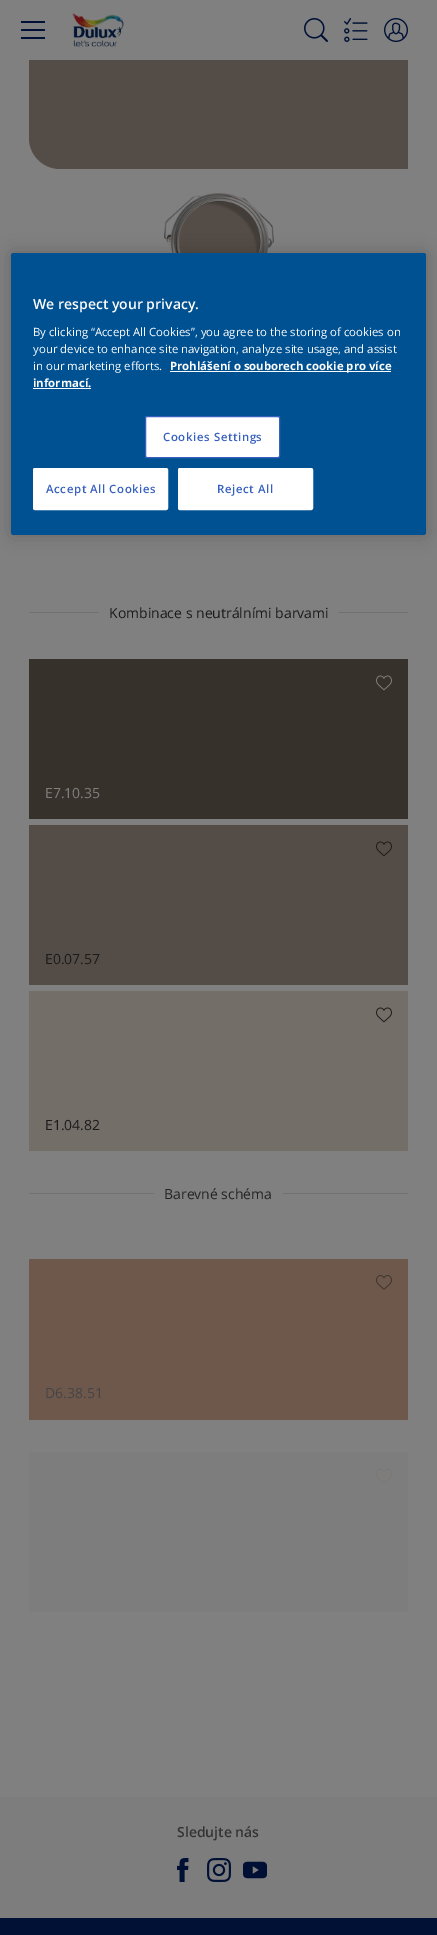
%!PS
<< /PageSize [437 1935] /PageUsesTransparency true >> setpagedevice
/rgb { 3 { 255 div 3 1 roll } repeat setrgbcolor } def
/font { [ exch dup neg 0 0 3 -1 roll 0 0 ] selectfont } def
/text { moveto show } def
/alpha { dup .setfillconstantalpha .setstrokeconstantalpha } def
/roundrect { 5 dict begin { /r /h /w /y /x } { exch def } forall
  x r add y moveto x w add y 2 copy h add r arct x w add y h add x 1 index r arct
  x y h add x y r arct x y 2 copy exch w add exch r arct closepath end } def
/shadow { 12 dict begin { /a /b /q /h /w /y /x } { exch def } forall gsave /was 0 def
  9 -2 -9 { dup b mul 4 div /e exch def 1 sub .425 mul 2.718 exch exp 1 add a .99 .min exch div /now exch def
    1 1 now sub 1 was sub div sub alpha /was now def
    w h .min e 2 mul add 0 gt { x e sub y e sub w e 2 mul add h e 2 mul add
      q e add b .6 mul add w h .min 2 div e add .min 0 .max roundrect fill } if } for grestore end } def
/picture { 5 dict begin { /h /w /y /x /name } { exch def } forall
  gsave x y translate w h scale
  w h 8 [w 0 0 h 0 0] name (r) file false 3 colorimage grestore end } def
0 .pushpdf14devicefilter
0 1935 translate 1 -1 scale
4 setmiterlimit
128 128 128 rgb
0 0 437 1935 rectfill
84 77 71 rgb
178 201 83 52 rectfill
(img_05.rgb) 164 193 110 60 picture
0 0 0 rgb
11 253 415 282 2.5 9 0.2 shadow
0 81 146 rgb
11 253 415 282 2.5 roundrect fill
250 251 255 rgb
170 371 221 1 rectfill
33 388 58 1 rectfill
255 255 255 rgb
145.5 416.5 134 41 1.5 roundrect gsave fill grestore
56 96 190 rgb
stroke
255 255 255 rgb
33.5 468.5 134 41 1.5 roundrect gsave fill grestore
stroke
178.5 468.5 134 41 1.5 roundrect gsave fill grestore
stroke
84 77 71 rgb
29 -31 moveto 348 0 rlineto 17 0 31 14 31 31 rcurveto 0 169 rlineto -348 0 rlineto -17 0 -31 -14 -31 -31 rcurveto closepath fill
128 128 128 rgb
29 0 379 60 rectfill
1 17 53 rgb
21 29 24 2 1 roundrect fill
21 21 24 2 rectfill
21 37 24 2 rectfill
(img_01.rgb) 72 13 52 34 picture
(img_02.rgb) 304 18 24 24 picture
(img_03.rgb) 344 18 24 24 picture
(img_04.rgb) 384 18 24 24 picture
113 113 113 rgb
29 612 70 1 rectfill
338 612 70 1 rectfill
55 49 43 rgb
29 659 379 160 rectfill
(img_06.rgb) 376 675 16 16 picture
84 77 71 rgb
29 825 379 160 rectfill
(img_07.rgb) 376 841 16 16 picture
116 110 105 rgb
29 991 379 160 rectfill
(img_08.rgb) 376 1007 16 16 picture
114 114 114 rgb
29 1193 125 1 rectfill
283 1193 125 1 rectfill
110 88 76 rgb
29 1259 379 161 rectfill
(img_09.rgb) 376 1275 16 15 picture
126 125 125 rgb
29 1452 379 160 rectfill
(img_10.rgb) 376 1469 16 14 picture
125 125 125 rgb
0 1797 437 121 rectfill
(img_11.rgb) 177 1858 12 24 picture
(img_12.rgb) 207 1858 24 24 picture
(img_13.rgb) 243 1861 24 18 picture
1 17 53 rgb
0 1918 437 17 rectfill
/OpenSans-SemiBold 14 font
255 255 255 rgb
(We respect your privacy.) 33 309 text
/OpenSans-Regular 11.4 font
(By clicking “Accept All Cookies”, you agree to the storing of cookies on) 33 336 text
(your device to enhance site navigation, analyze site usage, and assist) 33 353 text
(in our marketing efforts.) 33 370 text
/OpenSans-Bold 11.4 font
(Prohlášení o souborech cookie pro více) 170 370 text
(informací.) 33 387 text
/OpenSans-SemiBold 11.4 font
56 96 190 rgb
163 441 moveto 0.6 0 (Cookies Settings) ashow
46 493 moveto 0.6 0 (Accept All Cookies) ashow
217 493 moveto 0.6 0 (Reject All) ashow
/OpenSans-Regular 14 font
26 26 26 rgb
(Kombinace s neutrálními barvami) 109 618 text
128 128 128 rgb
(E7.10.35) 45 798 text
26 26 26 rgb
(E0.07.57) 45 964 text
(E1.04.82) 45 1130 text
35 35 35 rgb
(Barevné schéma) 164 1199 text
68 68 68 rgb
(D6.38.51) 45 1398 text
/OpenSans-SemiBold 14 font
51 51 51 rgb
(Sledujte nás) 177 1837 text
.poppdf14devicefilter showpage
